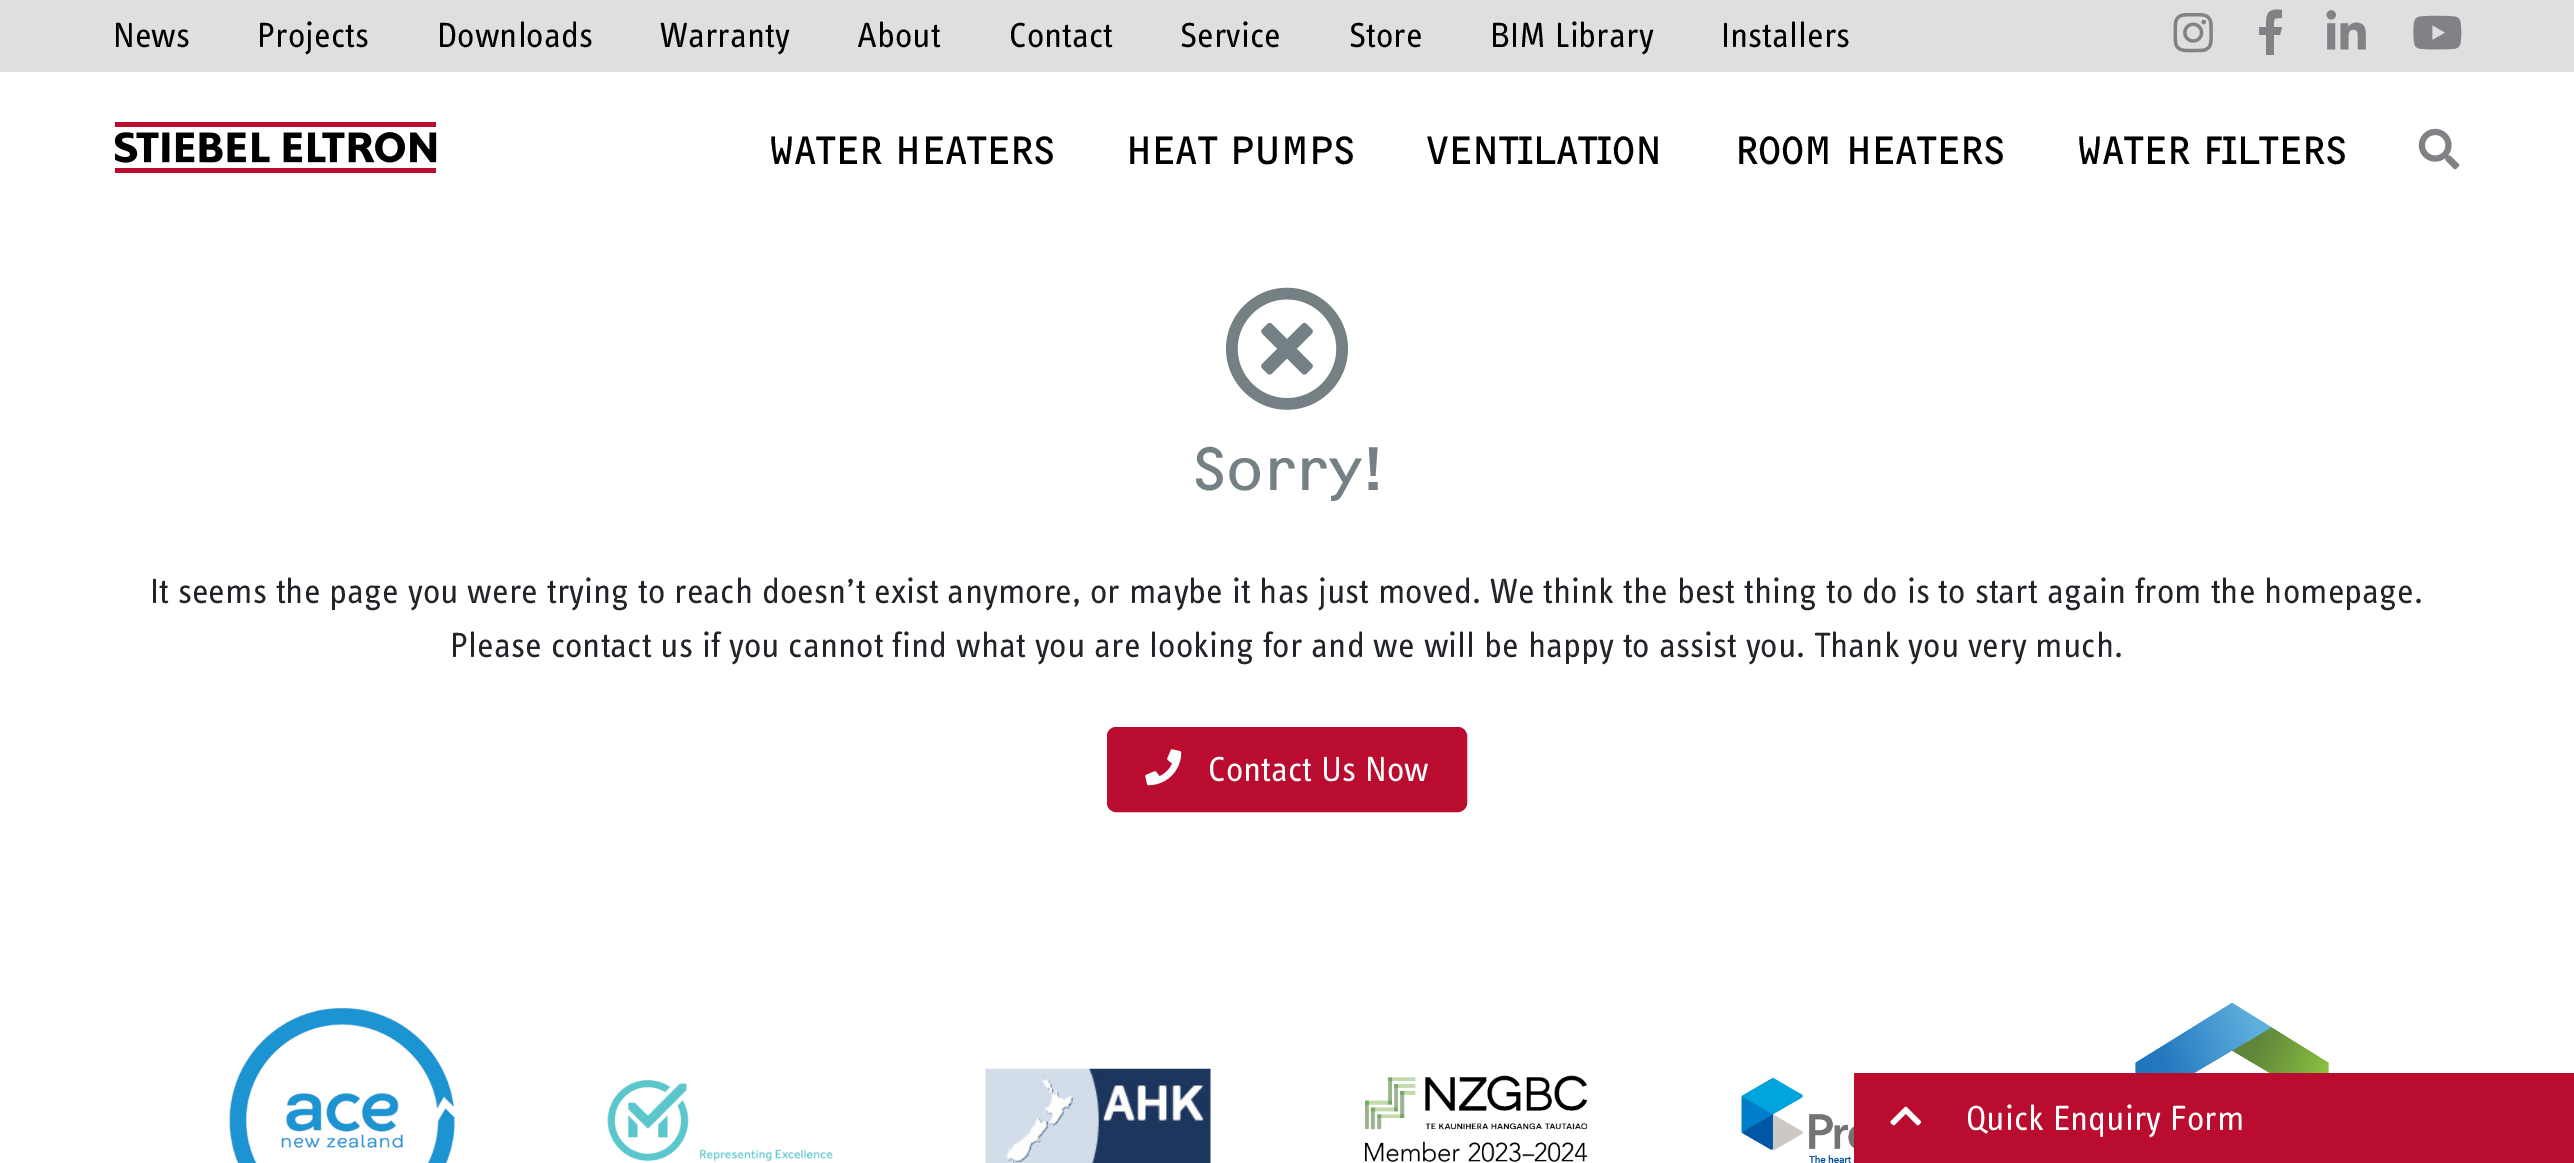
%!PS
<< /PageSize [2574 1163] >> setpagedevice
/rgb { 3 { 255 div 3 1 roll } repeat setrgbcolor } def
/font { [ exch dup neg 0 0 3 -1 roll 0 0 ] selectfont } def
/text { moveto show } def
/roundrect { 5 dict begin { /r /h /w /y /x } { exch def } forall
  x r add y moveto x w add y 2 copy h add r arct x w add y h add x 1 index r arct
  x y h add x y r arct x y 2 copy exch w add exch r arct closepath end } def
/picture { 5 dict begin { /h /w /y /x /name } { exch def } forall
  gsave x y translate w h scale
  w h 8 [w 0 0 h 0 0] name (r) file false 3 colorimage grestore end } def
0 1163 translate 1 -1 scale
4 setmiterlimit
255 255 255 rgb
0 0 2574 1163 rectfill
223 223 223 rgb
0 0 2574 72 rectfill
(img_01.rgb) 2173 12 40 41 picture
128 130 133 rgb
2266 55 moveto 0 -20 rlineto -7 0 rlineto 0 -8 rlineto 7 0 rlineto 0 -13 1 -19 16 -17 rcurveto 0 8 rlineto -9 0 -8 0 -8 9 rcurveto 8 0 rlineto -2 8 rlineto -6 0 rlineto 0 20 rlineto closepath fill
(img_02.rgb) 2326 10 40 40 picture
(img_03.rgb) 2413 15 49 35 picture
(img_04.rgb) 114 122 323 51 picture
(img_05.rgb) 2418 128 42 42 picture
(img_06.rgb) 1226 287 122 123 picture
186 12 47 rgb
1108 728 358 83 8 roundrect gsave fill grestore
2 setlinewidth
stroke
(img_07.rgb) 1145 749 37 37 picture
(img_08.rgb) 229 1008 226 155 picture
(img_09.rgb) 607 1080 226 81 picture
(img_10.rgb) 985 1068 226 95 picture
(img_11.rgb) 1365 1075 223 87 picture
(img_12.rgb) 1741 1077 113 86 picture
(img_13.rgb) 2121 1003 222 70 picture
1854 1073 720 90 rectfill
(img_14.rgb) 1890 1106 31 20 picture
/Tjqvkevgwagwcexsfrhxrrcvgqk-Regular 36 font
0 0 0 rgb
(News) 113 47 text
(Projects) 257 47 text
(Downloads) 437 47 text
(Warranty) 660 47 text
(About) 857 47 text
(Contact) 1009 47 text
(Service) 1180 47 text
(Store) 1349 47 text
(BIM Library) 1490 47 text
(Installers) 1721 47 text
/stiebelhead-Regular 40.5 font
(WATER HEATERS) 769 164 text
(HEAT PUMPS) 1126 164 text
(VENTILATION) 1427 164 text
(ROOM HEATERS) 1735 164 text
(WATER FILTERS) 2077 164 text
/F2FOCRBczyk-Regular 63 font
116 128 131 rgb
(Sorry!) 1192 490 text
/Tjqvkevgwagwcexsfrhxrrcvgqk-Regular 36 font
33 37 41 rgb
(It seems the page you were trying to reach doesn’t exist anymore, or maybe it has just moved. We think the best thing to do is to start again from the homepage.) 150 603 text
(Please contact us if you cannot find what you are looking for and we will be happy to assist you. Thank you very much.) 450 657 text
255 255 255 rgb
(Contact Us Now) 1208 781 text
(Quick Enquiry Form) 1966 1130 text
showpage
